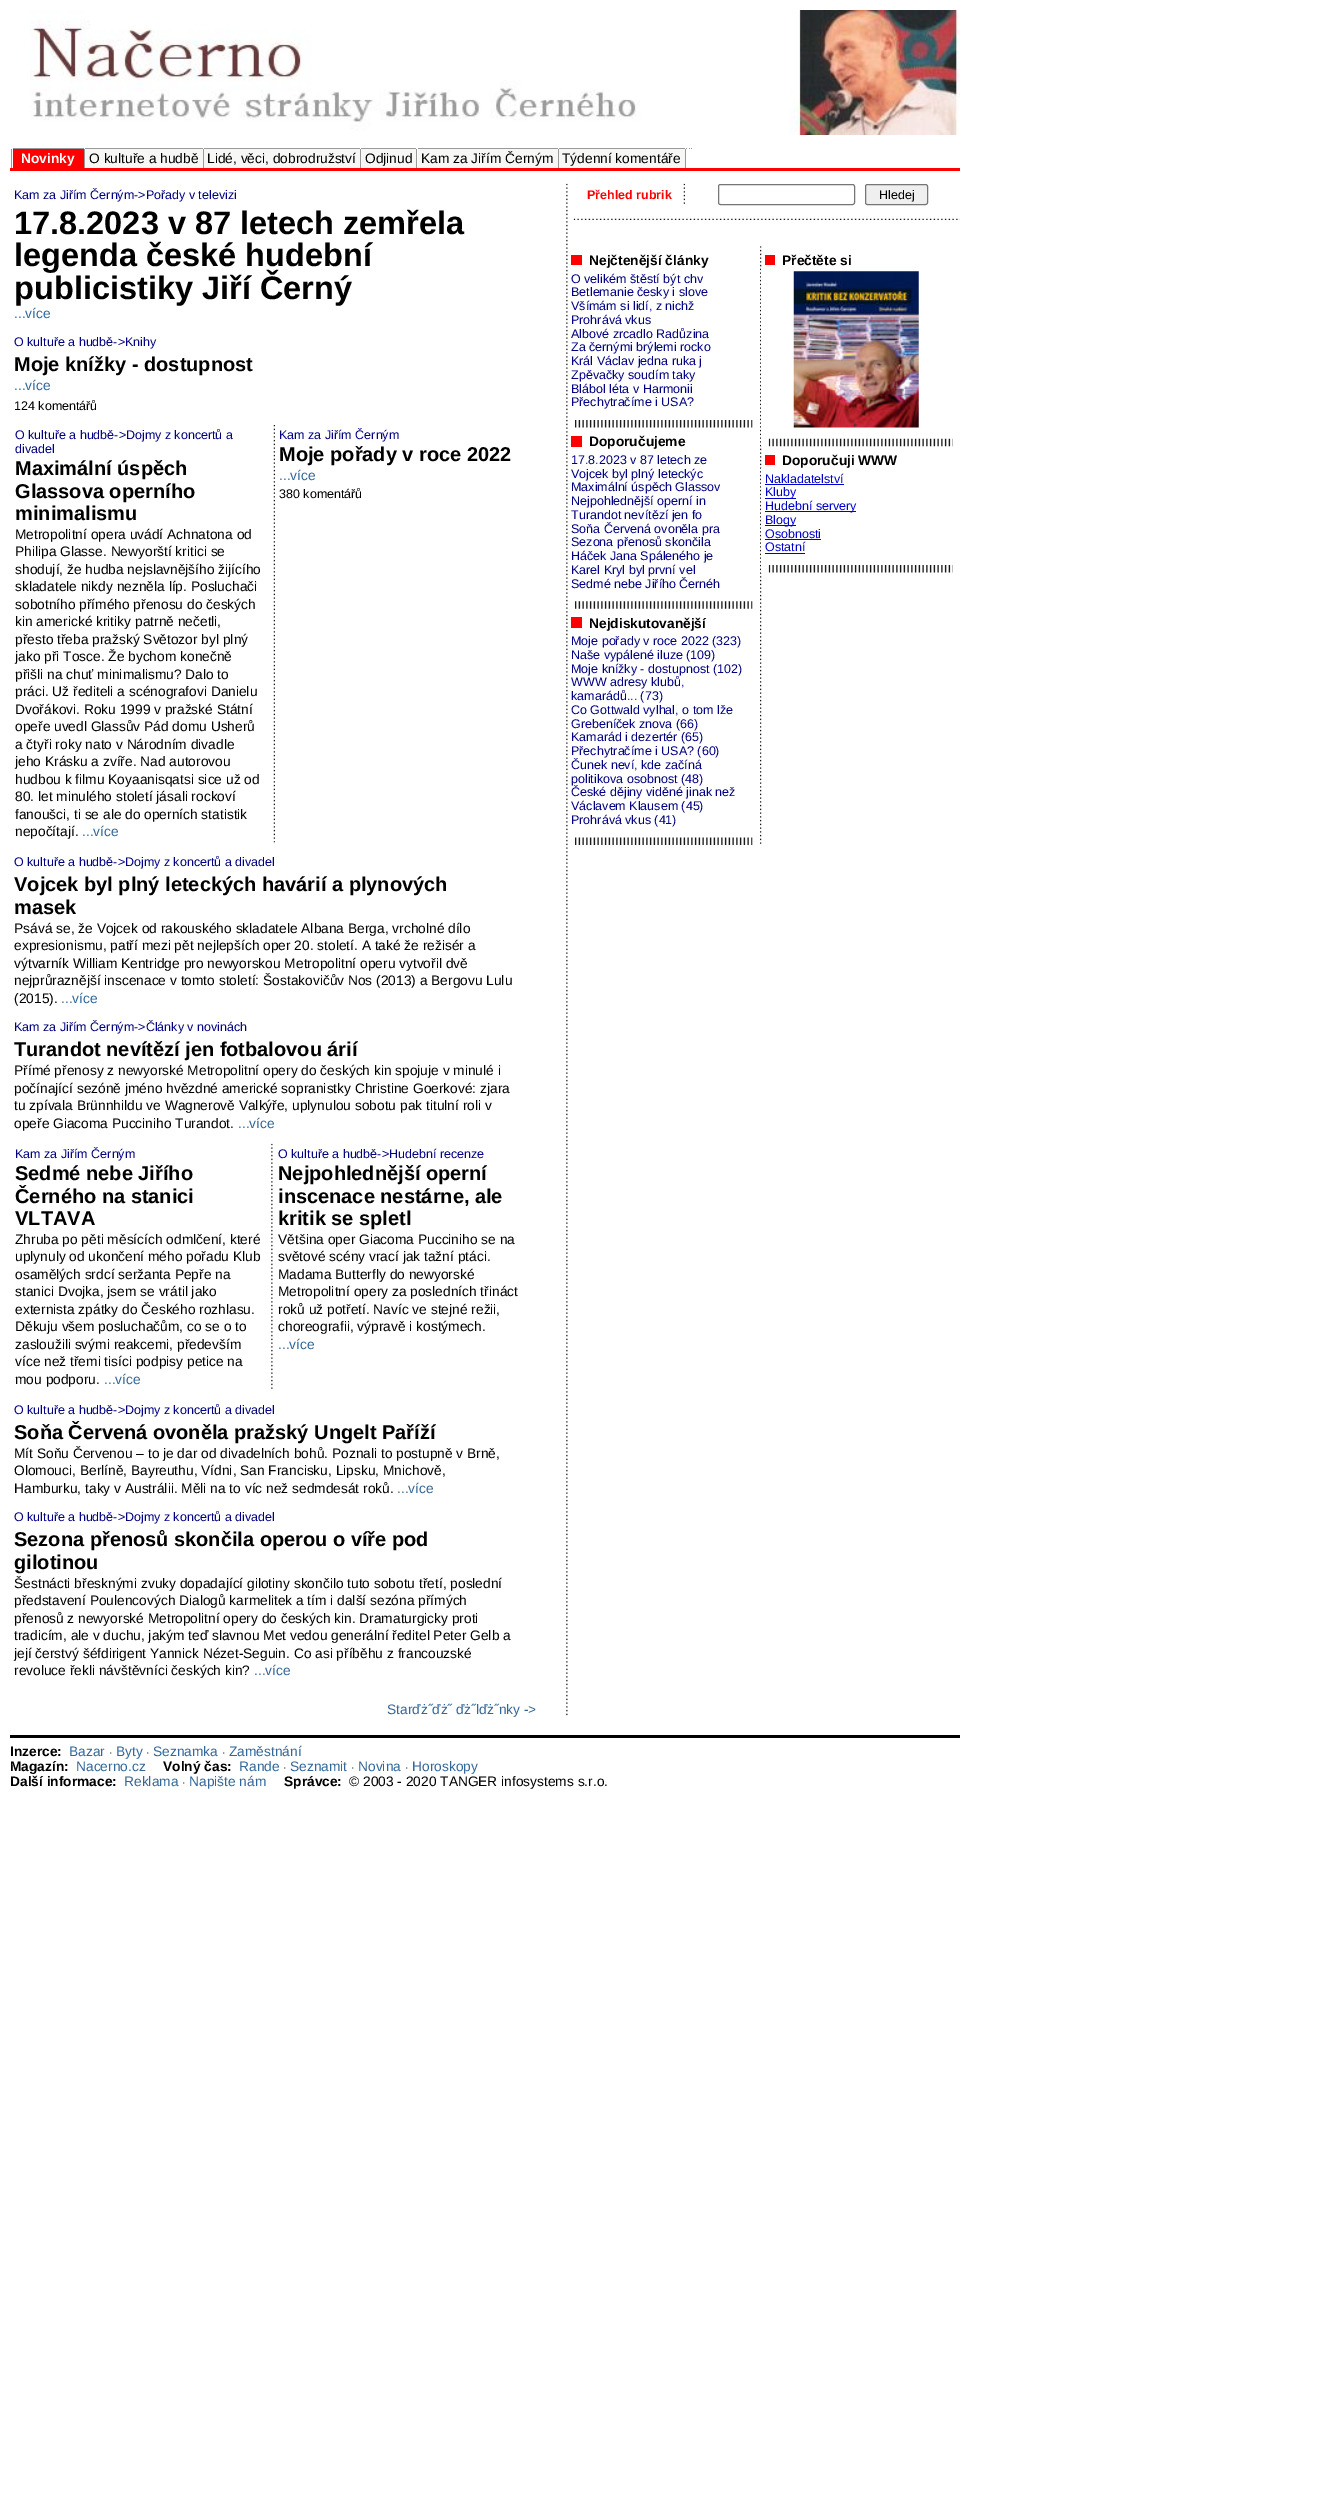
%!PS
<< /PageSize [1317 2510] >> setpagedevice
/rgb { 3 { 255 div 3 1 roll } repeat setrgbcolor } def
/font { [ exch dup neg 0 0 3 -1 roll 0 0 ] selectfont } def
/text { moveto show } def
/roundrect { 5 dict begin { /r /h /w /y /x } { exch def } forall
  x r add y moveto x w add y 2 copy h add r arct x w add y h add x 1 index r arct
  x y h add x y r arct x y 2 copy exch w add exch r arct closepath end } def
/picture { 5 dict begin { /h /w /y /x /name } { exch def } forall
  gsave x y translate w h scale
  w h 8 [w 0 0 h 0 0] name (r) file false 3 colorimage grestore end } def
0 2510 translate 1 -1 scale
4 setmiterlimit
255 255 255 rgb
0 0 1317 2510 rectfill
(img_01.rgb) 30 10 930 125 picture
153 153 153 rgb
13 148 71 1 rectfill
85 148 118 1 rectfill
204 148 156 1 rectfill
361 148 55 1 rectfill
418 148 140 1 rectfill
559 148 126 1 rectfill
686 148 1 1 rectfill
689 148 1 1 rectfill
691 148 1 1 rectfill
11 149 1 19 rectfill
255 0 0 rgb
13 149 71 19 rectfill
153 153 153 rgb
84 149 1 19 rectfill
247 247 246 rgb
85 149 118 19 rectfill
153 153 153 rgb
203 149 1 19 rectfill
247 247 246 rgb
204 149 156 19 rectfill
153 153 153 rgb
360 149 1 19 rectfill
247 247 246 rgb
361 149 55 19 rectfill
153 153 153 rgb
416 149 1 19 rectfill
247 247 246 rgb
418 149 140 19 rectfill
153 153 153 rgb
558 149 1 19 rectfill
247 247 246 rgb
559 149 126 19 rectfill
153 153 153 rgb
685 149 1 19 rectfill
255 0 0 rgb
10 168 950 3 rectfill
(img_02.rgb) 273 425 2 418 picture
(img_03.rgb) 271 1143 2 246 picture
(img_04.rgb) 566 183 2 1533 picture
(img_05.rgb) 683 183 2 21 picture
118 118 118 rgb
718.5 184.5 136 20 2 roundrect stroke
239 239 239 rgb
865.5 184.5 62 20 2 roundrect gsave fill grestore
118 118 118 rgb
stroke
(img_06.rgb) 573 218 387 2 picture
254 0 0 rgb
571 255 11 10 rectfill
(img_07.rgb) 575 420 178 8 picture
571 436 11 11 rectfill
(img_08.rgb) 575 601 178 8 picture
571 617 11 11 rectfill
(img_09.rgb) 575 837 178 8 picture
(img_10.rgb) 760 246 2 598 picture
765 255 10 10 rectfill
255 255 255 rgb
761 268 1 178 rectfill
(img_11.rgb) 793 271 126 157 picture
(img_12.rgb) 768 438 185 9 picture
254 0 0 rgb
765 455 10 10 rectfill
255 255 255 rgb
761 468 1 105 rectfill
0 0 204 rgb
765 484 79 1 rectfill
765 498 31 1 rectfill
765 511 91 1 rectfill
765 525 31 1 rectfill
765 539 56 1 rectfill
765 553 40 1 rectfill
(img_13.rgb) 768 565 185 8 picture
0 0 0 rgb
10 1735 950 3 rectfill
/LiberationSans-Bold 13.75 font
255 255 255 rgb
(Novinky) 21 163 text
/LiberationSans-Regular 13.75 font
0 0 0 rgb
(O kultuře a hudbě) 89 163 text
(Lidé, věci, dobrodružství) 207 163 text
(Odjinud) 365 163 text
(Kam za Jiřím Černým) 421 163 text
(Týdenní komentáře) 562 163 text
/LiberationSans-Regular 12.5 font
0 0 128 rgb
(Kam za Jiřím Černým->Pořady v televizi) 14 199 text
/LiberationSans-Bold 32.5 font
0 0 0 rgb
(17.8.2023 v 87 letech zemřela) 14 234 text
(legenda české hudební) 14 266 text
(publicistiky Jiří Černý) 14 299 text
/LiberationSans-Regular 13.75 font
51 102 153 rgb
(...více) 14 318 text
/LiberationSans-Regular 12.5 font
0 0 128 rgb
(O kultuře a hudbě->Knihy) 14 346 text
/LiberationSans-Bold 20 font
0 0 0 rgb
(Moje knížky - dostupnost) 14 371 text
/LiberationSans-Regular 13.75 font
51 102 153 rgb
(...více) 14 390 text
/LiberationSans-Regular 12.5 font
0 0 0 rgb
(124 komentářů) 14 410 text
0 0 128 rgb
(O kultuře a hudbě->Dojmy z koncertů a) 15 439 text
(divadel) 15 453 text
/LiberationSans-Bold 20 font
0 0 0 rgb
(Maximální úspěch) 15 475 text
(Glassova operního) 15 498 text
(minimalismu) 15 520 text
/LiberationSans-Regular 13.75 font
(Metropolitní opera uvádí Achnatona od) 15 539 text
(Philipa Glasse. Newyorští kritici se) 15 556 text
(shodují, že hudba nejslavnějšího žijícího) 15 574 text
(skladatele nikdy nezněla líp. Posluchači) 15 591 text
(sobotního přímého přenosu do českých) 15 609 text
(kin americké kritiky patrně nečetli,) 15 626 text
(přesto třeba pražský Světozor byl plný) 15 644 text
(jako při Tosce. Že bychom konečně) 15 661 text
(přišli na chuť minimalismu? Dalo to) 15 679 text
(práci. Už řediteli a scénografovi Danielu) 15 696 text
(Dvořákovi. Roku 1999 v pražské Státní) 15 714 text
(opeře uvedl Glassův Pád domu Usherů) 15 731 text
(a čtyři roky nato v Národním divadle) 15 749 text
(jeho Krásku a zvíře. Nad autorovou) 15 766 text
(hudbou k filmu Koyaanisqatsi sice už od) 15 784 text
(80. let minulého století jásali rockoví) 15 801 text
(fanoušci, ti se ale do operních statistik) 15 819 text
(nepočítají.) 15 836 text
51 102 153 rgb
(...více) 82 836 text
/LiberationSans-Regular 12.5 font
0 0 128 rgb
(Kam za Jiřím Černým) 279 439 text
/LiberationSans-Bold 20 font
0 0 0 rgb
(Moje pořady v roce 2022) 279 461 text
/LiberationSans-Regular 13.75 font
51 102 153 rgb
(...více) 279 480 text
/LiberationSans-Regular 12.5 font
0 0 0 rgb
(380 komentářů) 279 498 text
0 0 128 rgb
(O kultuře a hudbě->Dojmy z koncertů a divadel) 14 866 text
/LiberationSans-Bold 20 font
0 0 0 rgb
(Vojcek byl plný leteckých havárií a plynových) 14 891 text
(masek) 14 914 text
/LiberationSans-Regular 13.75 font
(Psává se, že Vojcek od rakouského skladatele Albana Berga, vrcholné dílo) 14 933 text
(expresionismu, patří mezi pět nejlepších oper 20. století. A také že režisér a) 14 950 text
(výtvarník William Kentridge pro newyorskou Metropolitní operu vytvořil dvě) 14 968 text
(nejprůraznější inscenace v tomto století: Šostakovičův Nos \(2013\) a Bergovu Lulu) 14 985 text
(\(2015\).) 14 1003 text
51 102 153 rgb
(...více) 61 1003 text
/LiberationSans-Regular 12.5 font
0 0 128 rgb
(Kam za Jiřím Černým->Články v novinách) 14 1031 text
/LiberationSans-Bold 20 font
0 0 0 rgb
(Turandot nevítězí jen fotbalovou árií) 14 1056 text
/LiberationSans-Regular 13.75 font
(Přímé přenosy z newyorské Metropolitní opery do českých kin spojuje v minulé i) 14 1075 text
(počínající sezóně jméno hvězdné americké sopranistky Christine Goerkové: zjara) 14 1093 text
(tu zpívala Brünnhildu ve Wagnerově Valkýře, uplynulou sobotu pak titulní roli v) 14 1110 text
(opeře Giacoma Pucciniho Turandot.) 14 1128 text
51 102 153 rgb
(...více) 238 1128 text
/LiberationSans-Regular 12.5 font
0 0 128 rgb
(Kam za Jiřím Černým) 15 1158 text
/LiberationSans-Bold 20 font
0 0 0 rgb
(Sedmé nebe Jiřího) 15 1180 text
(Černého na stanici) 15 1203 text
(VLTAVA) 15 1225 text
/LiberationSans-Regular 13.75 font
(Zhruba po pěti měsících odmlčení, které) 15 1244 text
(uplynuly od ukončení mého pořadu Klub) 15 1261 text
(osamělých srdcí seržanta Pepře na) 15 1279 text
(stanici Dvojka, jsem se vrátil jako) 15 1296 text
(externista zpátky do Českého rozhlasu.) 15 1314 text
(Děkuju všem posluchačům, co se o to) 15 1331 text
(zasloužili svými reakcemi, především) 15 1349 text
(více než třemi tisíci podpisy petice na) 15 1366 text
(mou podporu.) 15 1384 text
51 102 153 rgb
(...více) 104 1384 text
/LiberationSans-Regular 12.5 font
0 0 128 rgb
(O kultuře a hudbě->Hudební recenze) 278 1158 text
/LiberationSans-Bold 20 font
0 0 0 rgb
(Nejpohlednější operní) 278 1180 text
(inscenace nestárne, ale) 278 1203 text
(kritik se spletl) 278 1225 text
/LiberationSans-Regular 13.75 font
(Většina oper Giacoma Pucciniho se na) 278 1244 text
(světové scény vrací jak tažní ptáci.) 278 1261 text
(Madama Butterfly do newyorské) 278 1279 text
(Metropolitní opery za posledních třináct) 278 1296 text
(roků už potřetí. Navíc ve stejné režii,) 278 1314 text
(choreografii, výpravě i kostýmech.) 278 1331 text
51 102 153 rgb
(...více) 278 1349 text
/LiberationSans-Regular 12.5 font
0 0 128 rgb
(O kultuře a hudbě->Dojmy z koncertů a divadel) 14 1414 text
/LiberationSans-Bold 20 font
0 0 0 rgb
(Soňa Červená ovoněla pražský Ungelt Paříží) 14 1439 text
/LiberationSans-Regular 13.75 font
(Mít Soňu Červenou – to je dar od divadelních bohů. Poznali to postupně v Brně,) 14 1458 text
(Olomouci, Berlíně, Bayreuthu, Vídni, San Francisku, Lipsku, Mnichově,) 14 1475 text
(Hamburku, taky v Austrálii. Měli na to víc než sedmdesát roků.) 14 1493 text
51 102 153 rgb
(...více) 397 1493 text
/LiberationSans-Regular 12.5 font
0 0 128 rgb
(O kultuře a hudbě->Dojmy z koncertů a divadel) 14 1521 text
/LiberationSans-Bold 20 font
0 0 0 rgb
(Sezona přenosů skončila operou o víře pod) 14 1546 text
(gilotinou) 14 1569 text
/LiberationSans-Regular 13.75 font
(Šestnácti břesknými zvuky dopadající gilotiny skončilo tuto sobotu třetí, poslední) 14 1588 text
(představení Poulencových Dialogů karmelitek a tím i další sezóna přímých) 14 1605 text
(přenosů z newyorské Metropolitní opery do českých kin. Dramaturgicky proti) 14 1623 text
(tradicím, ale v duchu, jakým teď slavnou Met vedou generální ředitel Peter Gelb a) 14 1640 text
(její čerstvý šéfdirigent Yannick Nézet-Seguin. Co asi příběhu z francouzské) 14 1658 text
(revoluce řekli návštěvníci českých kin?) 14 1675 text
51 102 153 rgb
(...více) 254 1675 text
(Starďż˝ďż˝ ďż˝lďż˝nky ->) 387 1714 text
/LiberationSans-Bold 12.5 font
255 0 0 rgb
(Přehled rubrik) 587 199 text
/LiberationSans-Regular 12.5 font
0 0 0 rgb
(Hledej) 879 199 text
/LiberationSans-Bold 13.75 font
(Nejčtenější články) 589 265 text
/LiberationSans-Regular 12.5 font
0 0 128 rgb
(O velikém štěstí být chv) 571 283 text
(Betlemanie česky i slove) 571 296 text
(Všímám si lidí, z nichž) 571 310 text
(Prohrává vkus) 571 324 text
(Albové zrcadlo Radůzina) 571 338 text
(Za černými brýlemi rocko) 571 351 text
(Král Václav jedna ruka j) 571 365 text
(Zpěvačky soudím taky) 571 379 text
(Blábol léta v Harmonii) 571 393 text
(Přechytračíme i USA?) 571 406 text
/LiberationSans-Bold 13.75 font
0 0 0 rgb
(Doporučujeme) 589 446 text
/LiberationSans-Regular 12.5 font
0 0 128 rgb
(17.8.2023 v 87 letech ze) 571 464 text
(Vojcek byl plný leteckýc) 571 478 text
(Maximální úspěch Glassov) 571 491 text
(Nejpohlednější operní in) 571 505 text
(Turandot nevítězí jen fo) 571 519 text
(Soňa Červená ovoněla pra) 571 533 text
(Sezona přenosů skončila) 571 546 text
(Háček Jana Spáleného je) 571 560 text
(Karel Kryl byl první vel) 571 574 text
(Sedmé nebe Jiřího Černéh) 571 588 text
/LiberationSans-Bold 13.75 font
0 0 0 rgb
(Nejdiskutovanější) 589 628 text
/LiberationSans-Regular 12.5 font
0 0 128 rgb
(Moje pořady v roce 2022 \(323\)) 571 645 text
(Naše vypálené iluze \(109\)) 571 659 text
(Moje knížky - dostupnost \(102\)) 571 673 text
(WWW adresy klubů,) 571 686 text
(kamarádů... \(73\)) 571 700 text
(Co Gottwald vylhal, o tom lže) 571 714 text
(Grebeníček znova \(66\)) 571 728 text
(Kamarád i dezertér \(65\)) 571 741 text
(Přechytračíme i USA? \(60\)) 571 755 text
(Čunek neví, kde začíná) 571 769 text
(politikova osobnost \(48\)) 571 783 text
(České dějiny viděné jinak než) 571 796 text
(Václavem Klausem \(45\)) 571 810 text
(Prohrává vkus \(41\)) 571 824 text
/LiberationSans-Bold 13.75 font
0 0 0 rgb
(Přečtěte si) 782 265 text
(Doporučuji WWW) 782 465 text
/LiberationSans-Regular 12.5 font
0 0 204 rgb
(Nakladatelství) 765 483 text
(Kluby) 765 496 text
(Hudební servery) 765 510 text
(Blogy) 765 524 text
(Osobnosti) 765 538 text
(Ostatní) 765 551 text
/LiberationSans-Bold 13.75 font
0 0 0 rgb
(Inzerce:) 10 1756 text
/LiberationSans-Regular 13.75 font
51 102 153 rgb
(Bazar) 69 1756 text
/LiberationSans-Regular 11 font
0 0 0 rgb
(·) 109 1756 text
/LiberationSans-Regular 13.75 font
51 102 153 rgb
(Byty) 116 1756 text
/LiberationSans-Regular 11 font
0 0 0 rgb
(·) 146 1756 text
/LiberationSans-Regular 13.75 font
51 102 153 rgb
(Seznamka) 153 1756 text
/LiberationSans-Regular 11 font
0 0 0 rgb
(·) 222 1756 text
/LiberationSans-Regular 13.75 font
51 102 153 rgb
(Zaměstnání) 229 1756 text
/LiberationSans-Bold 13.75 font
0 0 0 rgb
(Magazín:) 10 1771 text
/LiberationSans-Regular 13.75 font
51 102 153 rgb
(Nacerno.cz) 76 1771 text
/LiberationSans-Bold 13.75 font
0 0 0 rgb
(Volný čas:) 163 1771 text
/LiberationSans-Regular 13.75 font
51 102 153 rgb
(Rande) 239 1771 text
/LiberationSans-Regular 11 font
0 0 0 rgb
(·) 283 1771 text
/LiberationSans-Regular 13.75 font
51 102 153 rgb
(Seznamit) 290 1771 text
/LiberationSans-Regular 11 font
0 0 0 rgb
(·) 351 1771 text
/LiberationSans-Regular 13.75 font
51 102 153 rgb
(Novina) 358 1771 text
/LiberationSans-Regular 11 font
0 0 0 rgb
(·) 405 1771 text
/LiberationSans-Regular 13.75 font
51 102 153 rgb
(Horoskopy) 412 1771 text
/LiberationSans-Bold 13.75 font
0 0 0 rgb
(Další informace:) 10 1786 text
/LiberationSans-Regular 13.75 font
51 102 153 rgb
(Reklama) 124 1786 text
/LiberationSans-Regular 11 font
0 0 0 rgb
(·) 182 1786 text
/LiberationSans-Regular 13.75 font
51 102 153 rgb
(Napište nám) 189 1786 text
/LiberationSans-Bold 13.75 font
0 0 0 rgb
(Správce:) 284 1786 text
/LiberationSans-Regular 13.75 font
(© 2003 - 2020 TANGER infosystems s.r.o.) 349 1786 text
showpage
